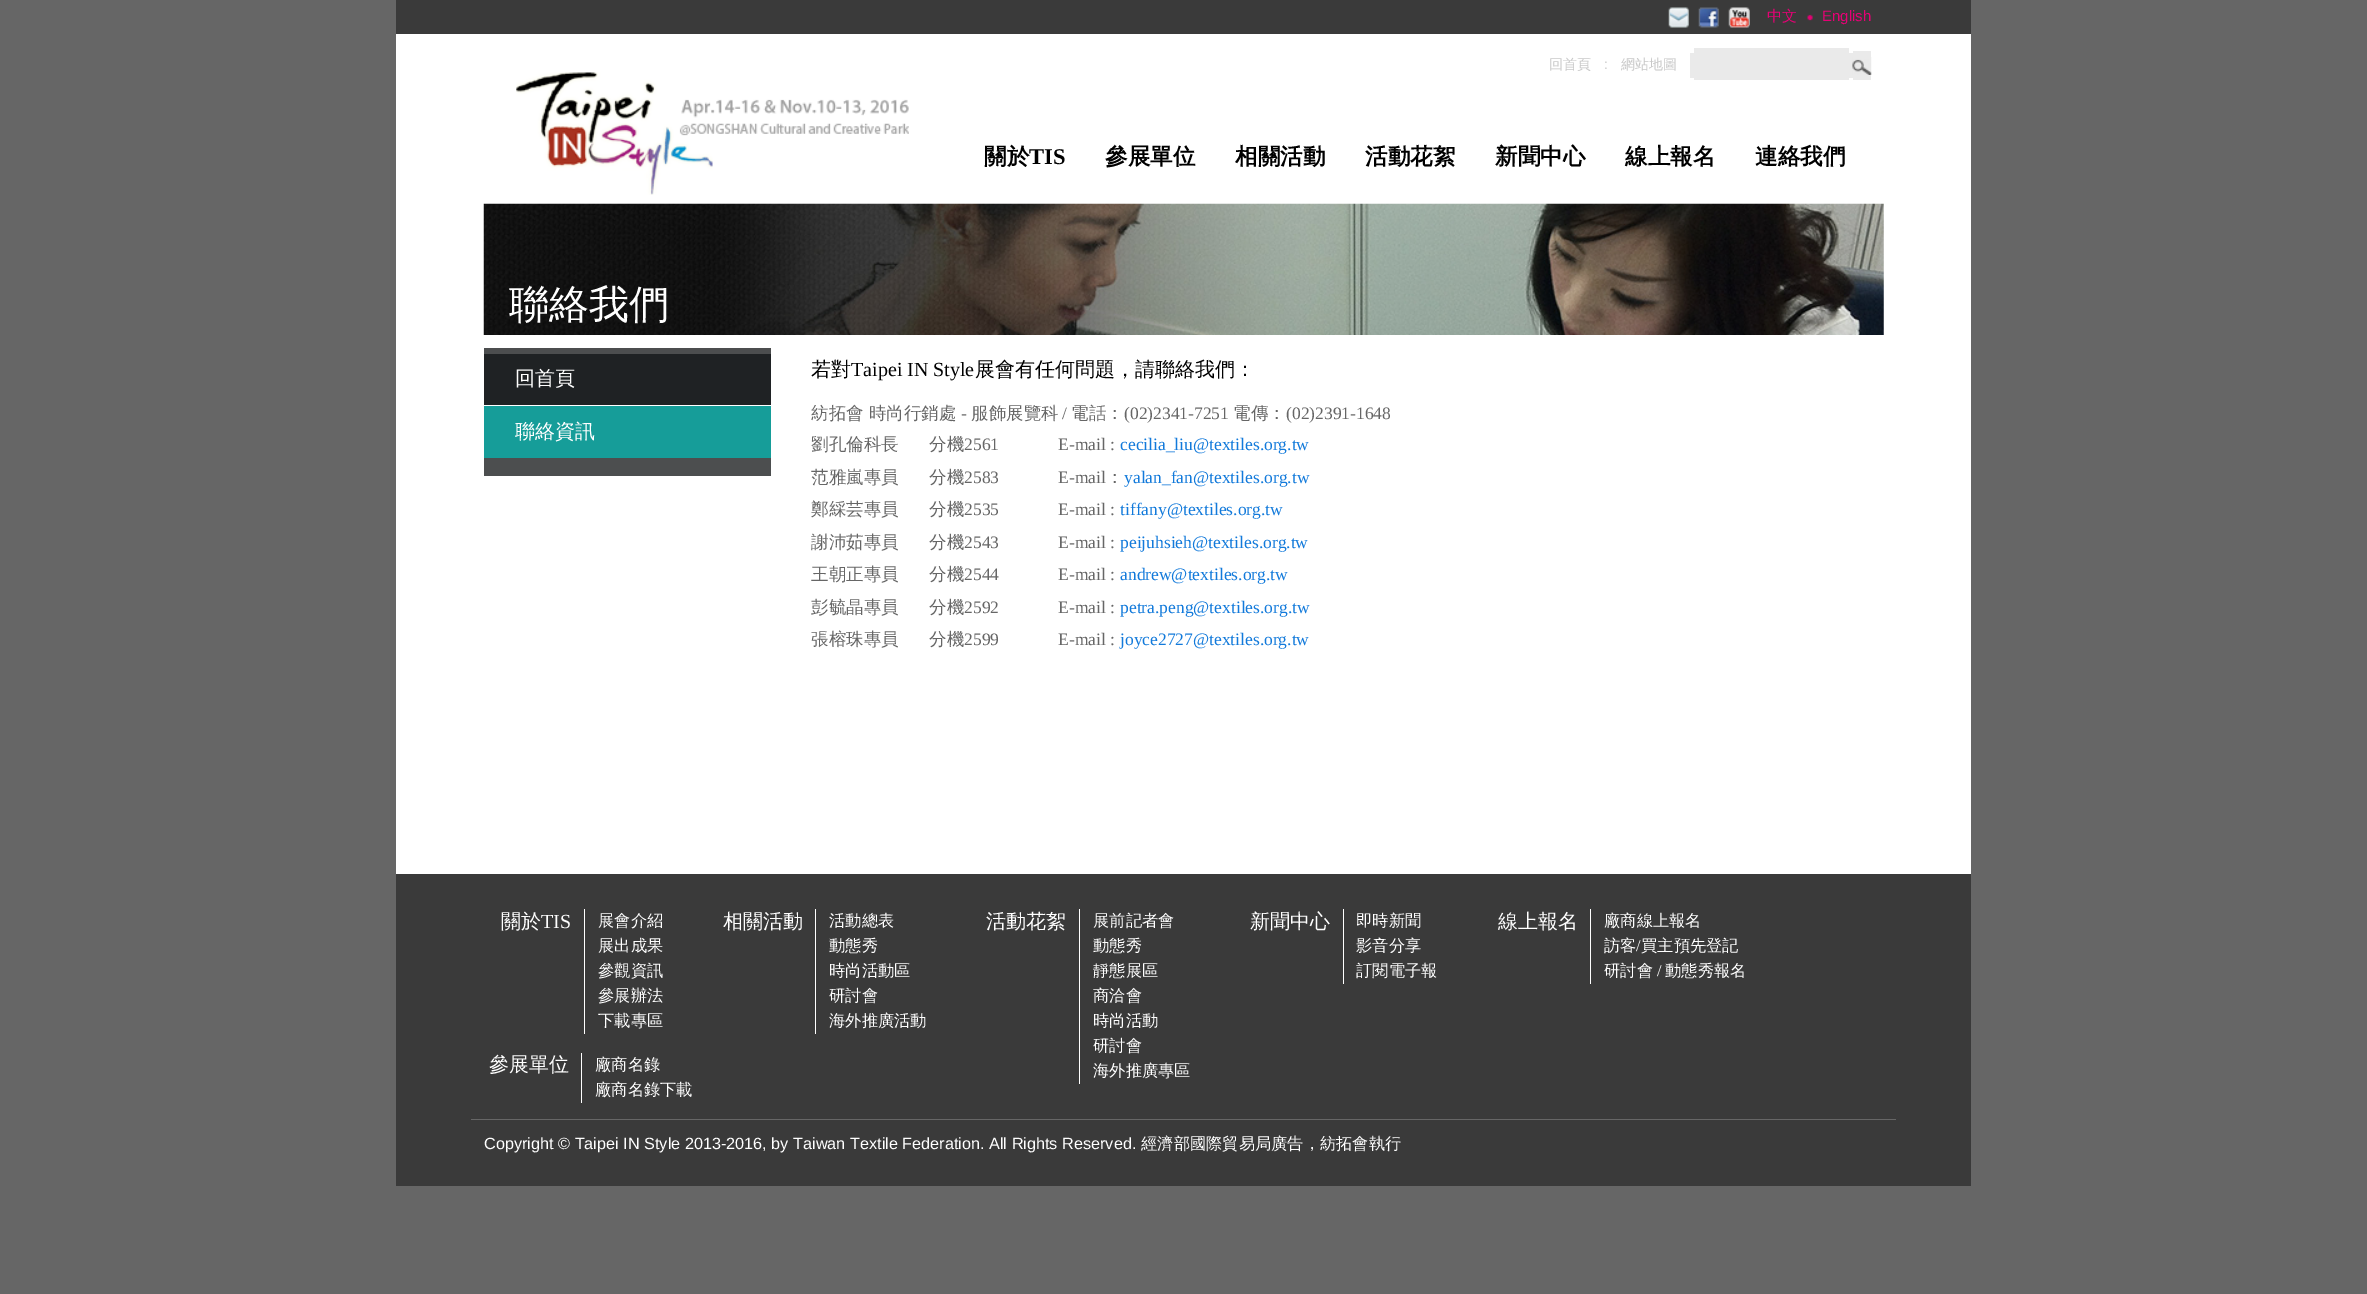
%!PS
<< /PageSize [2367 1294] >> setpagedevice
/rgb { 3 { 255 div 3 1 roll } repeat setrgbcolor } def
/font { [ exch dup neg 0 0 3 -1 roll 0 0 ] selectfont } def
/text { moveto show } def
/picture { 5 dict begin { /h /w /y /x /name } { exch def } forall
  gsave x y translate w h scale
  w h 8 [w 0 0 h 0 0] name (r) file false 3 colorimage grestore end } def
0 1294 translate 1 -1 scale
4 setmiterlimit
102 102 102 rgb
0 0 2367 1294 rectfill
255 255 255 rgb
396 34 1575 840 rectfill
58 58 58 rgb
396 0 1575 34 rectfill
(img_01.rgb) 1668 7 21 21 picture
(img_02.rgb) 1698 7 21 21 picture
(img_03.rgb) 1728 7 22 21 picture
(img_04.rgb) 1807 14 6 7 picture
(img_05.rgb) 516 72 393 123 picture
234 234 234 rgb
1690 53 4 25 rectfill
1694 48 155 32 rectfill
1849 53 4 25 rectfill
1853 51 18 29 rectfill
(img_06.rgb) 1852 57 20 18 picture
(img_07.rgb) 483 203 1401 132 picture
76 78 79 rgb
484 348 287 6 rectfill
31 34 36 rgb
484 354 287 51 rectfill
22 157 153 rgb
484 406 287 52 rectfill
76 78 79 rgb
484 458 287 18 rectfill
58 58 58 rgb
396 874 1575 312 rectfill
255 255 255 rgb
584 909 1 125 rectfill
815 909 1 125 rectfill
1079 909 1 175 rectfill
1343 909 1 75 rectfill
1590 909 1 75 rectfill
581 1053 1 50 rectfill
102 102 102 rgb
471 1119 1425 1 rectfill
/WenQuanYiZenHei-Medium 15 font
230 1 117 rgb
(中文) 1767 21 text
/LiberationSans-Regular 15 font
(English) 1822 21 text
/WenQuanYiZenHei-Medium 14 font
200 200 200 rgb
(回首頁) 1549 69 text
(網站地圖) 1621 69 text
/LiberationSans-Regular 14 font
(:) 1604 69 text
/WenQuanYiZenHei-Bold 22.5 font
0 0 0 rgb
(關於) 984 164 text
/LiberationSerif-Bold 22.5 font
(TIS) 1029 164 text
/WenQuanYiZenHei-Bold 22.5 font
(參展單位) 1105 164 text
(相關活動) 1235 164 text
(活動花絮) 1365 164 text
(新聞中心) 1495 164 text
(線上報名) 1625 164 text
(連絡我們) 1755 164 text
/WenQuanYiZenHei-Medium 40 font
255 255 255 rgb
(聯絡我們) 509 318 text
/WenQuanYiZenHei-Medium 20 font
(回首頁) 515 385 text
(聯絡資訊) 515 438 text
0 0 0 rgb
(若對) 811 376 text
/LiberationSerif-Regular 20 font
(Taipei IN Style) 851 376 text
/WenQuanYiZenHei-Medium 20 font
(展會有任何問題，請聯絡我們：) 975 376 text
/WenQuanYiZenHei-Medium 17.5 font
102 102 102 rgb
(紡拓會 時尚行銷處) 811 419 text
/LiberationSerif-Regular 17.5 font
(-) 961 419 text
/WenQuanYiZenHei-Medium 17.5 font
(服飾展覽科) 971 419 text
/LiberationSerif-Regular 17.5 font
(/) 1062 419 text
/WenQuanYiZenHei-Medium 17.5 font
(電話：) 1071 419 text
/LiberationSerif-Regular 17.5 font
(\(02\)2341-7251) 1124 419 text
/WenQuanYiZenHei-Medium 17.5 font
(電傳：) 1233 419 text
/LiberationSerif-Regular 17.5 font
(\(02\)2391-1648) 1286 419 text
/WenQuanYiZenHei-Medium 17.5 font
(劉孔倫科長) 811 450 text
(分機) 929 450 text
/LiberationSerif-Regular 17.5 font
(2561) 964 450 text
(E-mail :) 1058 450 text
18 122 219 rgb
(cecilia_liu@textiles.org.tw) 1120 450 text
/WenQuanYiZenHei-Medium 17.5 font
102 102 102 rgb
(范雅嵐專員) 811 483 text
(分機) 929 483 text
/LiberationSerif-Regular 17.5 font
(2583) 964 483 text
(E-mail) 1058 483 text
/WenQuanYiZenHei-Medium 17.5 font
(：) 1106 483 text
/LiberationSerif-Regular 17.5 font
18 122 219 rgb
(yalan_fan@textiles.org.tw) 1124 483 text
/WenQuanYiZenHei-Medium 17.5 font
102 102 102 rgb
(鄭綵芸專員) 811 515 text
(分機) 929 515 text
/LiberationSerif-Regular 17.5 font
(2535) 964 515 text
(E-mail :) 1058 515 text
18 122 219 rgb
(tiffany@textiles.org.tw) 1120 515 text
/WenQuanYiZenHei-Medium 17.5 font
102 102 102 rgb
(謝沛茹專員) 811 548 text
(分機) 929 548 text
/LiberationSerif-Regular 17.5 font
(2543) 964 548 text
(E-mail :) 1058 548 text
18 122 219 rgb
(peijuhsieh@textiles.org.tw) 1120 548 text
/WenQuanYiZenHei-Medium 17.5 font
102 102 102 rgb
(王朝正專員) 811 580 text
(分機) 929 580 text
/LiberationSerif-Regular 17.5 font
(2544) 964 580 text
(E-mail :) 1058 580 text
18 122 219 rgb
(andrew@textiles.org.tw) 1120 580 text
/WenQuanYiZenHei-Medium 17.5 font
102 102 102 rgb
(彭毓晶專員) 811 613 text
(分機) 929 613 text
/LiberationSerif-Regular 17.5 font
(2592) 964 613 text
(E-mail :) 1058 613 text
18 122 219 rgb
(petra.peng@textiles.org.tw) 1120 613 text
/WenQuanYiZenHei-Medium 17.5 font
102 102 102 rgb
(張榕珠專員) 811 645 text
(分機) 929 645 text
/LiberationSerif-Regular 17.5 font
(2599) 964 645 text
(E-mail :) 1058 645 text
18 122 219 rgb
(joyce2727@textiles.org.tw) 1120 645 text
/WenQuanYiZenHei-Medium 20 font
255 255 255 rgb
(關於) 501 928 text
/LiberationSerif-Regular 20 font
(TIS) 541 928 text
/WenQuanYiZenHei-Medium 16.25 font
(展會介紹) 598 926 text
(展出成果) 598 951 text
(參觀資訊) 598 976 text
(參展辦法) 598 1001 text
(下載專區) 598 1026 text
/WenQuanYiZenHei-Medium 20 font
(相關活動) 723 928 text
/WenQuanYiZenHei-Medium 16.25 font
(活動總表) 829 926 text
(動態秀) 829 951 text
(時尚活動區) 829 976 text
(研討會) 829 1001 text
(海外推廣活動) 829 1026 text
/WenQuanYiZenHei-Medium 20 font
(活動花絮) 986 928 text
/WenQuanYiZenHei-Medium 16.25 font
(展前記者會) 1093 926 text
(動態秀) 1093 951 text
(靜態展區) 1093 976 text
(商洽會) 1093 1001 text
(時尚活動) 1093 1026 text
(研討會) 1093 1051 text
(海外推廣專區) 1093 1076 text
/WenQuanYiZenHei-Medium 20 font
(新聞中心) 1250 928 text
/WenQuanYiZenHei-Medium 16.25 font
(即時新聞) 1356 926 text
(影音分享) 1356 951 text
(訂閱電子報) 1356 976 text
/WenQuanYiZenHei-Medium 20 font
(線上報名) 1498 928 text
/WenQuanYiZenHei-Medium 16.25 font
(廠商線上報名) 1604 926 text
(訪客) 1604 951 text
/LiberationSerif-Regular 16.25 font
(/) 1636 951 text
/WenQuanYiZenHei-Medium 16.25 font
(買主預先登記) 1641 951 text
(研討會) 1604 976 text
/LiberationSerif-Regular 16.25 font
(/) 1657 976 text
/WenQuanYiZenHei-Medium 16.25 font
(動態秀報名) 1665 976 text
/WenQuanYiZenHei-Medium 20 font
(參展單位) 489 1071 text
/WenQuanYiZenHei-Medium 16.25 font
(廠商名錄) 595 1070 text
(廠商名錄下載) 595 1095 text
/LiberationSans-Regular 16.25 font
(Copyright © Taipei IN Style 2013-2016, by Taiwan Textile Federation. All Rights Reserved.) 484 1149 text
/WenQuanYiZenHei-Medium 16.25 font
(經濟部國際貿易局廣告，紡拓會執行) 1141 1149 text
showpage
